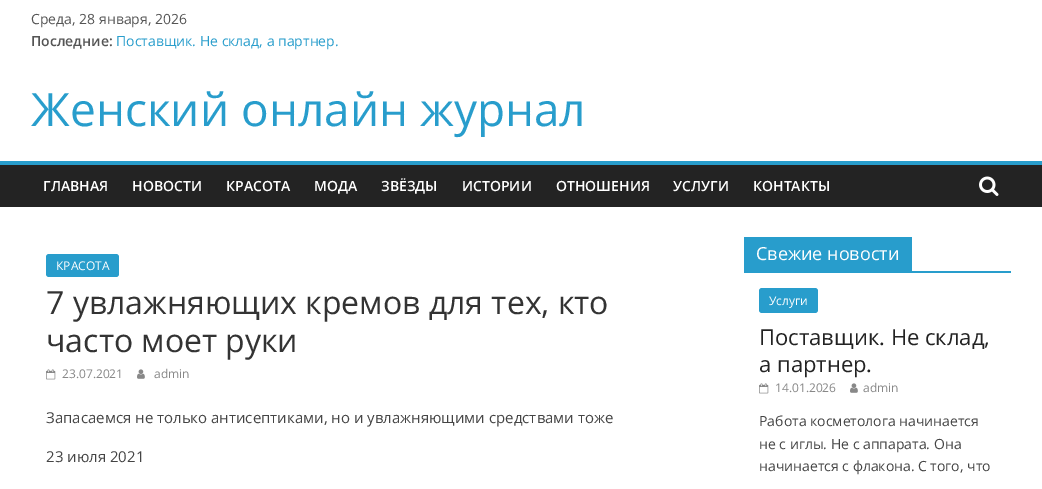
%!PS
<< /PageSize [1042 489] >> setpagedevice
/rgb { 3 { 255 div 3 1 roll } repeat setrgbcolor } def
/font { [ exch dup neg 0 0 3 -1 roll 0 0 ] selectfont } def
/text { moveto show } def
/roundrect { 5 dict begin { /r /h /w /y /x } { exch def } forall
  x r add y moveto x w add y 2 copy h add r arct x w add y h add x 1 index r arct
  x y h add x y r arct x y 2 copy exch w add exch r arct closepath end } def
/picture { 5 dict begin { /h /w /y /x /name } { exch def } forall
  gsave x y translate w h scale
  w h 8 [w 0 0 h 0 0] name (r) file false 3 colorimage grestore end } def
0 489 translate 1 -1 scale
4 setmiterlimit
255 255 255 rgb
0 0 1042 489 rectfill
35 35 35 rgb
0 165 1042 42 rectfill
40 157 204 rgb
0 161 1042 4 rectfill
(img_01.rgb) 979 176 20 20 picture
46 254 73 23 3 roundrect fill
(img_02.rgb) 46 369 10 11 picture
(img_03.rgb) 137 369 8 10 picture
744 271 267 2 rectfill
744 237 168 34 rectfill
759 288 59 25 3 roundrect fill
(img_02.rgb) 759 383 10 11 picture
(img_03.rgb) 850 383 8 10 picture
/OpenSans-Regular 14 font
85 85 85 rgb
(Среда, 28 января, 2026) 31 24 text
/OpenSans-SemiBold 14 font
(Последние:) 31 46 text
/OpenSans-Regular 14 font
40 157 204 rgb
(Поставщик. Не склад, а партнер.) 116 46 text
/OpenSans-Regular 46 font
(Женский онлайн журнал) 31 126 text
/OpenSans-SemiBold 14 font
255 255 255 rgb
(ГЛАВНАЯ) 43 191 text
(НОВОСТИ) 132 191 text
(КРАСОТА) 226 191 text
(МОДА) 314 191 text
(ЗВЁЗДЫ) 381 191 text
(ИСТОРИИ) 462 191 text
(ОТНОШЕНИЯ) 556 191 text
(УСЛУГИ) 673 191 text
(КОНТАКТЫ) 753 191 text
/OpenSans-Regular 12 font
(КРАСОТА) 56 270 text
/OpenSans-Regular 32 font
51 51 51 rgb
(7 увлажняющих кремов для тех, кто) 46 314 text
(часто моет руки) 46 352 text
/OpenSans-Regular 12 font
136 136 136 rgb
(23.07.2021) 62 378 text
(admin) 154 378 text
/OpenSans-Regular 15 font
68 68 68 rgb
(Запасаемся не только антисептиками, но и увлажняющими средствами тоже) 46 423 text
(23 июля 2021) 46 462 text
/OpenSans-Regular 18 font
255 255 255 rgb
(Свежие новости) 756 260 text
/OpenSans-Regular 12 font
(Услуги) 769 305 text
/OpenSans-Regular 22 font
35 35 35 rgb
(Поставщик. Не склад,) 759 345 text
(а партнер.) 759 372 text
/OpenSans-Regular 12 font
136 136 136 rgb
(14.01.2026) 775 392 text
(admin) 863 392 text
/OpenSans-Regular 14 font
68 68 68 rgb
(Работа косметолога начинается) 759 426 text
(не с иглы. Не с аппарата. Она) 759 449 text
(начинается с флакона. С того, что) 759 471 text
showpage
